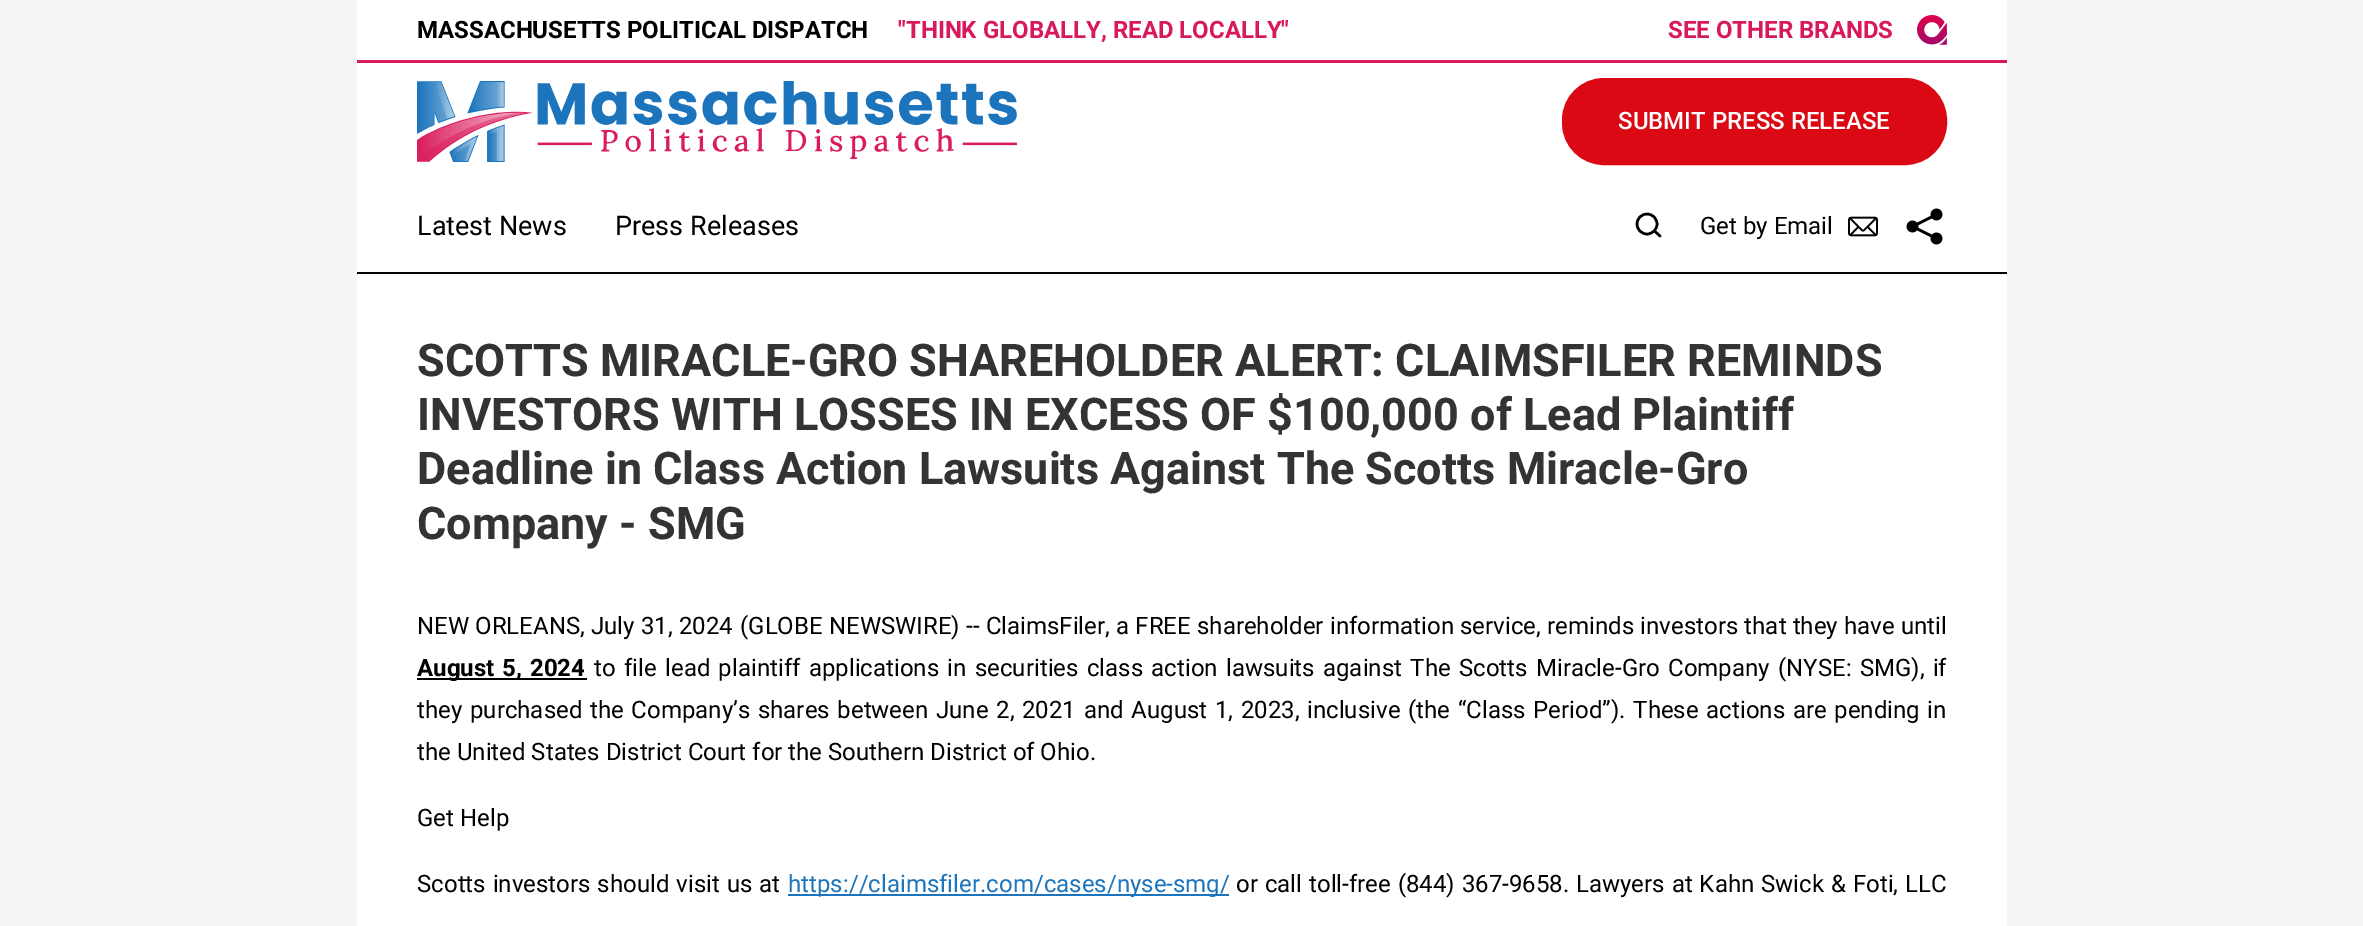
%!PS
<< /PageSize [2363 926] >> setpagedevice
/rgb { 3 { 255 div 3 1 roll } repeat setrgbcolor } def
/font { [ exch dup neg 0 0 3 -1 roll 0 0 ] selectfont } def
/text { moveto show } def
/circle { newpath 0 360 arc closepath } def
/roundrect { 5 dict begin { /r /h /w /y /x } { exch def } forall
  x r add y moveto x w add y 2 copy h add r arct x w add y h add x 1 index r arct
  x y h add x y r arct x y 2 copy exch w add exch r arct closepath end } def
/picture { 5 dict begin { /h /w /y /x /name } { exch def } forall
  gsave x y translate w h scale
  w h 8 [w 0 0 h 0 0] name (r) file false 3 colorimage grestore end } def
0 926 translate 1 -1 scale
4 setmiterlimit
245 245 245 rgb
0 0 2363 926 rectfill
255 255 255 rgb
357 0 1650 60 rectfill
216 25 94 rgb
357 60 1650 3 rectfill
(img_01.rgb) 1917 15 30 30 picture
255 255 255 rgb
357 63 1650 209 rectfill
0 0 0 rgb
357 272 1650 2 rectfill
(img_02.rgb) 417 81 600 81 picture
219 9 19 rgb
1563.5 79.5 382 84 40.5 roundrect gsave fill grestore
3 setlinewidth
stroke
0 0 0 rgb
2.5 setlinewidth
1647 224 10 circle stroke
1 setlinecap
1 setlinejoin
1660 236 moveto -5.5 -5 rlineto stroke
(img_03.rgb) 1848 216 30 21 picture
(img_04.rgb) 1906 208 37 37 picture
255 255 255 rgb
357 274 1650 652 rectfill
0 0 0 rgb
417 678 170 2 rectfill
28 117 188 rgb
788 894 441 2 rectfill
/Roboto-Bold 24 font
0 0 0 rgb
(MASSACHUSETTS POLITICAL DISPATCH) 417 38 text
216 25 94 rgb
("THINK GLOBALLY, READ LOCALLY") 898 38 text
(SEE OTHER BRANDS) 1668 38 text
/Roboto-Medium 24 font
255 255 255 rgb
(SUBMIT PRESS RELEASE) 1618 129 text
/Roboto-Regular 27 font
0 0 0 rgb
(Latest News) 417 235 text
(Press Releases) 615 235 text
/Roboto-Regular 24 font
(Get by Email) 1700 234 text
/Roboto-Bold 45 font
51 51 51 rgb
(SCOTTS MIRACLE-GRO SHAREHOLDER ALERT: CLAIMSFILER REMINDS) 417 376 text
(INVESTORS WITH LOSSES IN EXCESS OF $100,000 of Lead Plaintiff) 417 430 text
(Deadline in Class Action Lawsuits Against The Scotts Miracle-Gro) 417 484 text
(Company - SMG) 417 539 text
/Roboto-Regular 24 font
0 0 0 rgb
(NEW ORLEANS, July) 417 634 text
(31, 2024) 641 634 text
740 634 moveto 0.3 0 32 (\(GLOBE NEWSWIRE\) -- ClaimsFiler, a FREE shareholder information service, reminds investors that they have until) widthshow
/Roboto-Bold 24 font
417 676 moveto 2 0 32 (August 5, 2024) widthshow
/Roboto-Regular 24 font
594 676 moveto 2.4 0 32 (to file lead plaintiff applications in securities class action lawsuits against The Scotts Miracle-Gro Company \(NYSE: SMG\), if) widthshow
417 718 moveto 1.75 0 32 (they purchased the Company’s shares between June 2, 2021 and August 1, 2023, inclusive \(the “Class Period”\). These actions are pending in) widthshow
(the United States District Court for the Southern District of Ohio.) 417 760 text
(Get Help) 417 826 text
417 892 moveto 1 0 32 (Scotts investors should visit us at) widthshow
28 117 188 rgb
(https://claimsfiler.com/cases/nyse-smg/) 788 892 text
0 0 0 rgb
1236 892 moveto 1 0 32 (or call toll-free \(844\) 367-9658. Lawyers at Kahn Swick & Foti, LLC) widthshow
showpage
